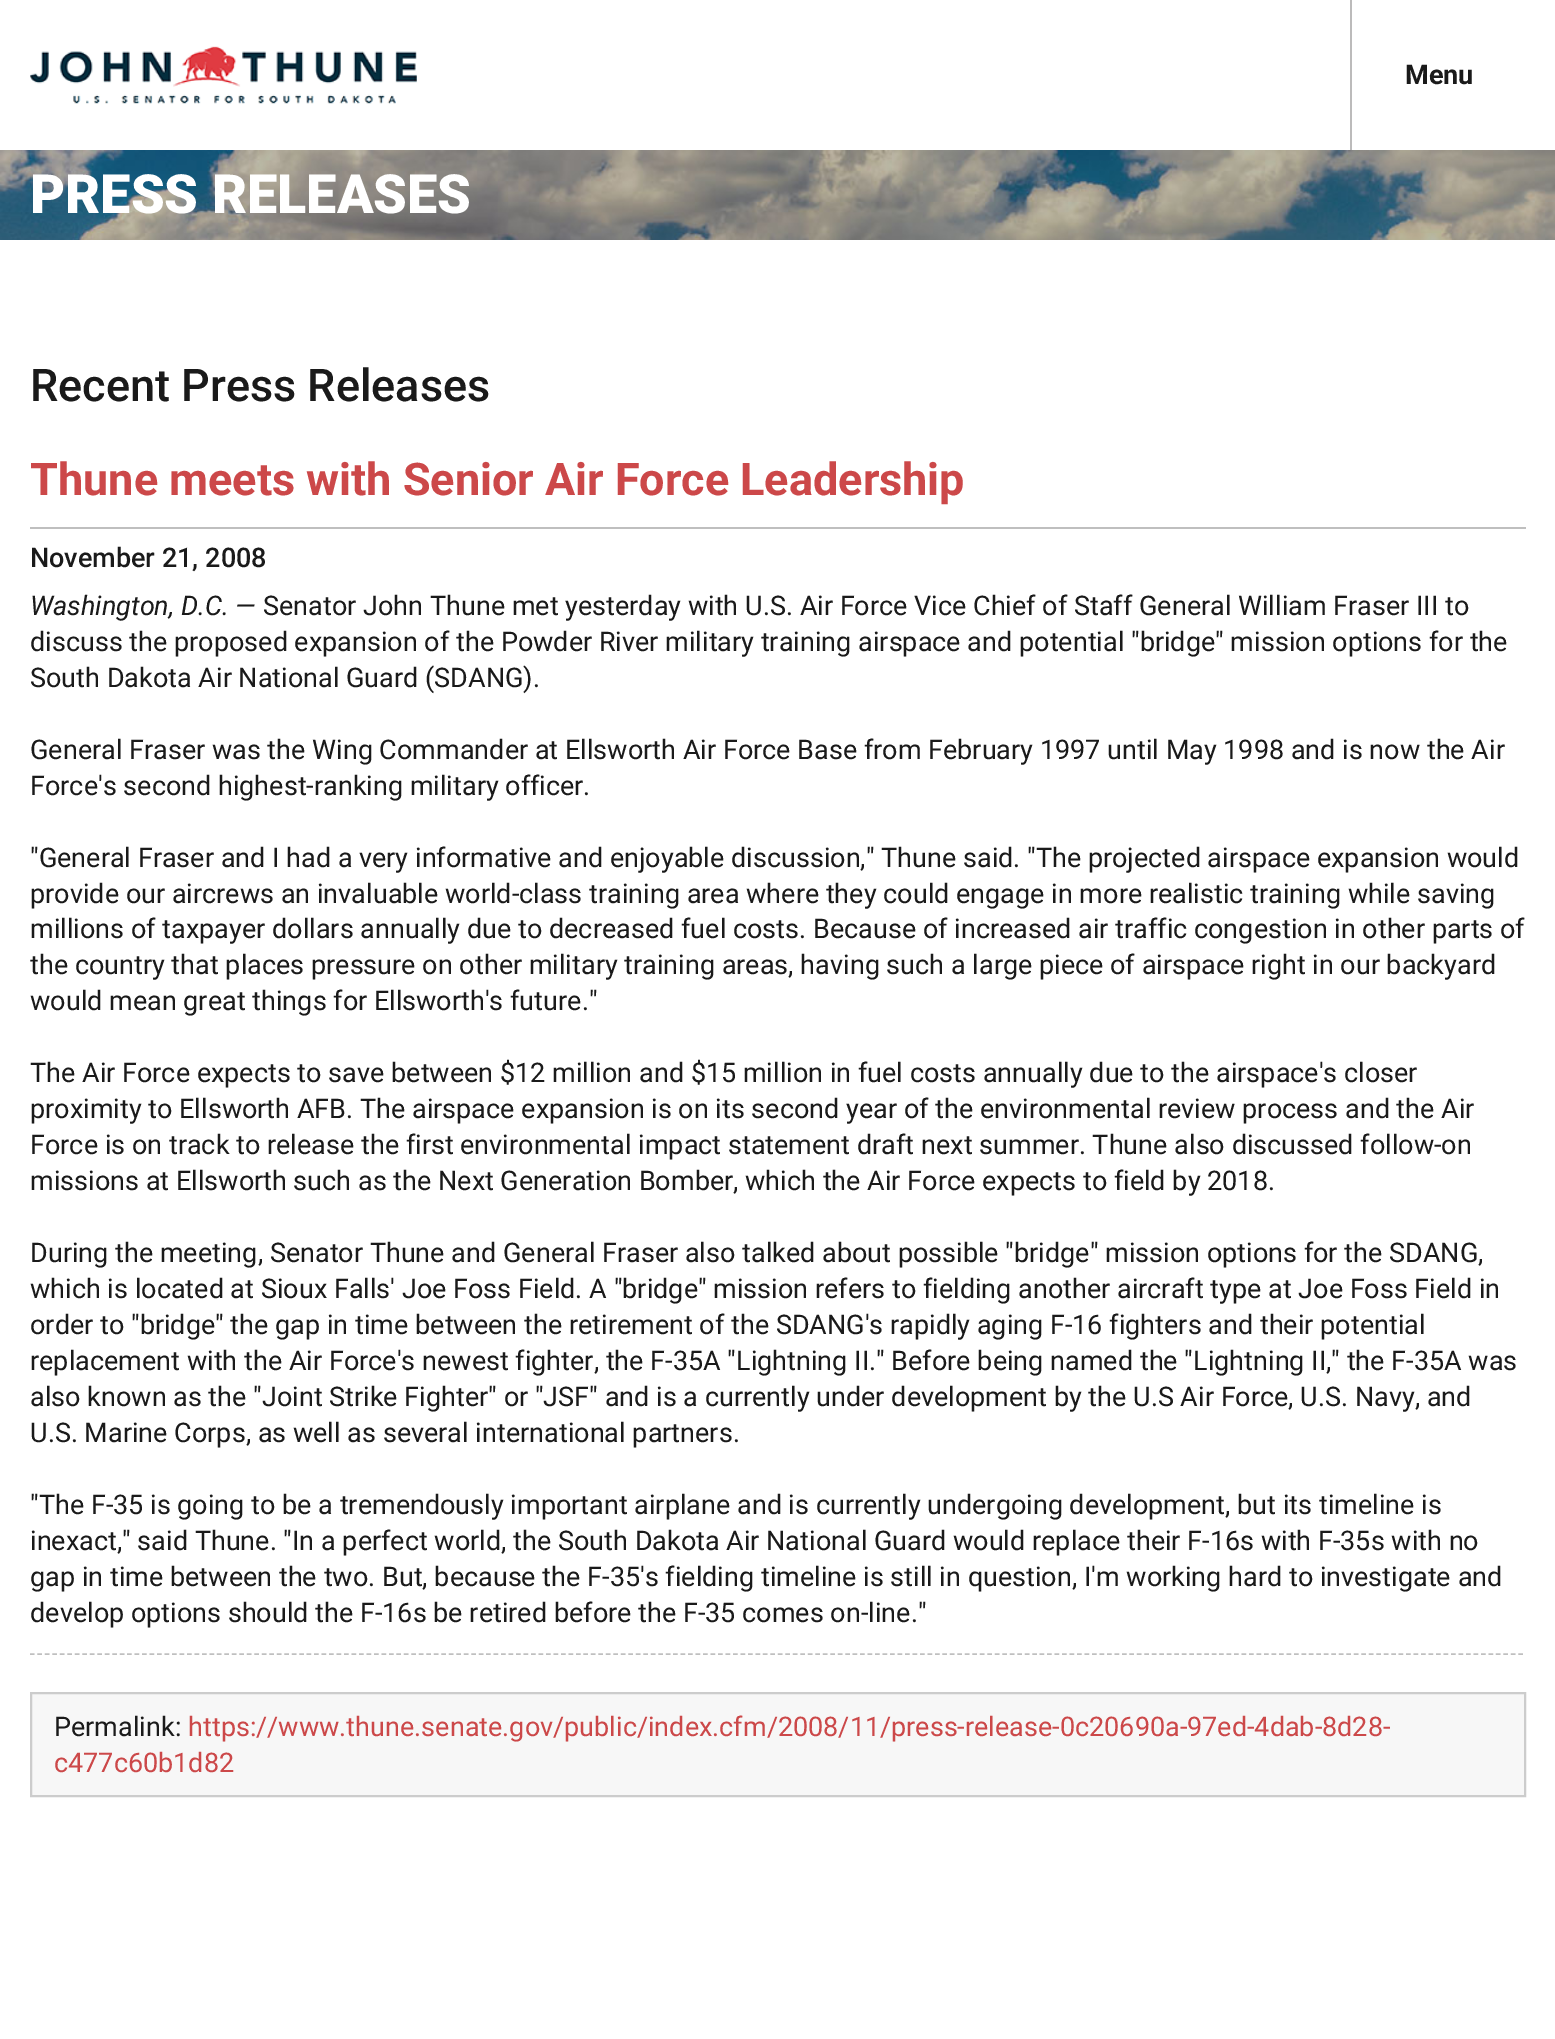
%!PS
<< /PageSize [1555 2039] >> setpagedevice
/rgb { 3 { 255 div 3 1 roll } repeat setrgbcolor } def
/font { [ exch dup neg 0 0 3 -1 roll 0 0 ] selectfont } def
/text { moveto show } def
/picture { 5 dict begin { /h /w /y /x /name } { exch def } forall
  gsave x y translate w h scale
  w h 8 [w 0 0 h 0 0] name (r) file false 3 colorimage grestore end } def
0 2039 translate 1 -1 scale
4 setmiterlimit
255 255 255 rgb
0 0 1555 2039 rectfill
(img_01.rgb) 30 46 387 58 picture
188 187 187 rgb
1350 0 2 150 rectfill
(img_02.rgb) 0 150 1555 90 picture
191 191 191 rgb
30 527 1496 2 rectfill
1.5 setlinewidth
[4.5 2.98] 0 setdash
30 1654 moveto 1495.5 0 rlineto stroke
247 247 247 rgb
31 1693 moveto 1494 0 rlineto 0 103 rlineto -1494 0 rlineto closepath gsave fill grestore
204 204 204 rgb
2 setlinewidth
[] 0 setdash
stroke
/Roboto-Bold 27 font
26 26 26 rgb
(Menu) 1405 84 text
/Roboto-Black 54 font
255 255 255 rgb
(PRESS RELEASES) 30 213 text
/Roboto-Medium 45 font
26 26 26 rgb
(Recent Press Releases) 30 401 text
/Roboto-Bold 45 font
204 72 73 rgb
(Thune meets with Senior Air Force Leadership) 30 495 text
/Roboto-Medium 27 font
26 26 26 rgb
(November 21, 2008) 30 567 text
/Roboto-Italic 27 font
(Washington, D.C. —) 30 615 text
/Roboto-Regular 27 font
(Senator John Thune met yesterday with U.S. Air Force Vice Chief of Staff General William Fraser III to) 263 615 text
(discuss the proposed expansion of the Powder River military training airspace and potential "bridge" mission options for the) 30 651 text
(South Dakota Air National Guard \(SDANG\).) 30 687 text
(General Fraser was the Wing Commander at Ellsworth Air Force Base from February 1997 until May 1998 and is now the Air) 30 759 text
(Force's second highest-ranking military officer.) 30 795 text
("General Fraser and I had a very informative and enjoyable discussion," Thune said. "The projected airspace expansion would) 30 867 text
(provide our aircrews an invaluable world-class training area where they could engage in more realistic training while saving) 30 903 text
(millions of taxpayer dollars annually due to decreased fuel costs. Because of increased air traffic congestion in other parts of) 30 938 text
(the country that places pressure on other military training areas, having such a large piece of airspace right in our backyard) 30 974 text
(would mean great things for Ellsworth's future.") 30 1010 text
(The Air Force expects to save between $12 million and $15 million in fuel costs annually due to the airspace's closer) 30 1082 text
(proximity to Ellsworth AFB. The airspace expansion is on its second year of the environmental review process and the Air) 30 1118 text
(Force is on track to release the first environmental impact statement draft next summer. Thune also discussed follow-on) 30 1154 text
(missions at Ellsworth such as the Next Generation Bomber, which the Air Force expects to field by 2018.) 30 1190 text
(During the meeting, Senator Thune and General Fraser also talked about possible "bridge" mission options for the SDANG,) 30 1262 text
(which is located at Sioux Falls' Joe Foss Field. A "bridge" mission refers to fielding another aircraft type at Joe Foss Field in) 30 1298 text
(order to "bridge" the gap in time between the retirement of the SDANG's rapidly aging F-16 fighters and their potential) 30 1334 text
(replacement with the Air Force's newest fighter, the F-35A "Lightning II." Before being named the "Lightning II," the F-35A was) 30 1370 text
(also known as the "Joint Strike Fighter" or "JSF" and is a currently under development by the U.S Air Force, U.S. Navy, and) 30 1406 text
(U.S. Marine Corps, as well as several international partners.) 30 1442 text
("The F-35 is going to be a tremendously important airplane and is currently undergoing development, but its timeline is) 30 1514 text
(inexact," said Thune. "In a perfect world, the South Dakota Air National Guard would replace their F-16s with F-35s with no) 30 1550 text
(gap in time between the two. But, because the F-35's fielding timeline is still in question, I'm working hard to investigate and) 30 1586 text
(develop options should the F-16s be retired before the F-35 comes on-line.") 30 1622 text
(Permalink:) 54 1736 text
204 72 73 rgb
(https://www.thune.senate.gov/public/index.cfm/2008/11/press-release-0c20690a-97ed-4dab-8d28-) 188 1736 text
(c477c60b1d82) 54 1772 text
showpage
